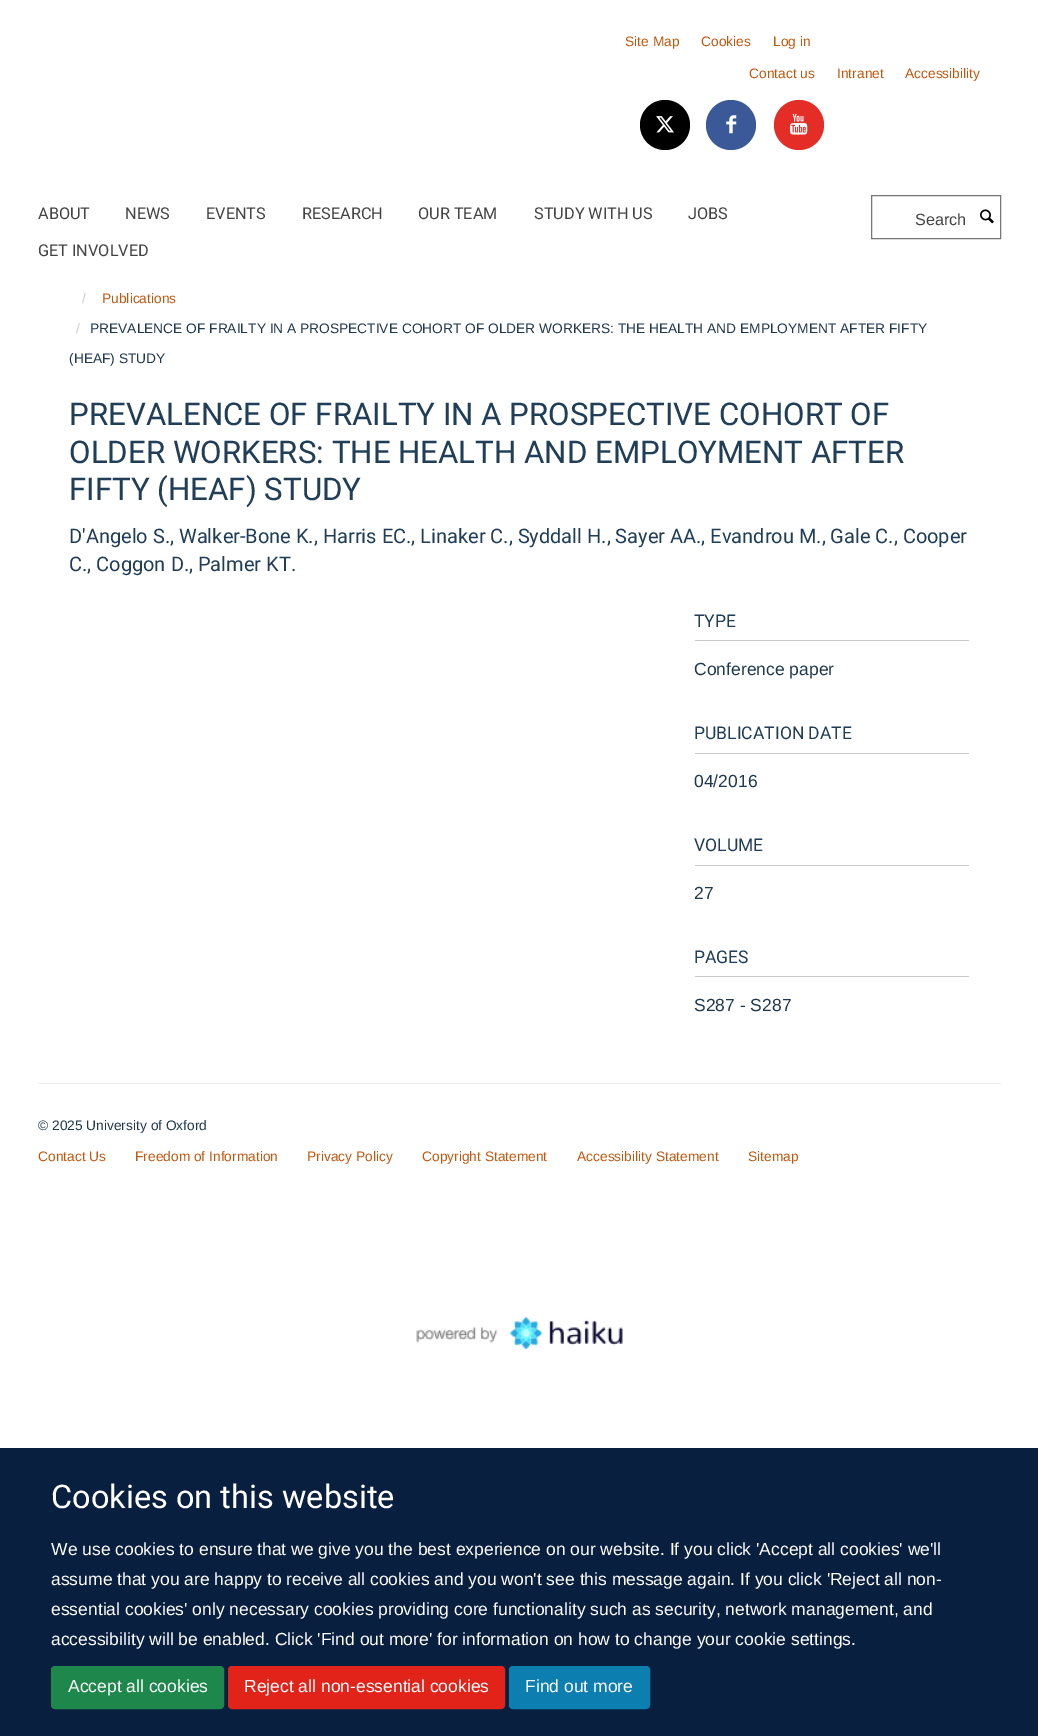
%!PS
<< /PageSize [1038 1736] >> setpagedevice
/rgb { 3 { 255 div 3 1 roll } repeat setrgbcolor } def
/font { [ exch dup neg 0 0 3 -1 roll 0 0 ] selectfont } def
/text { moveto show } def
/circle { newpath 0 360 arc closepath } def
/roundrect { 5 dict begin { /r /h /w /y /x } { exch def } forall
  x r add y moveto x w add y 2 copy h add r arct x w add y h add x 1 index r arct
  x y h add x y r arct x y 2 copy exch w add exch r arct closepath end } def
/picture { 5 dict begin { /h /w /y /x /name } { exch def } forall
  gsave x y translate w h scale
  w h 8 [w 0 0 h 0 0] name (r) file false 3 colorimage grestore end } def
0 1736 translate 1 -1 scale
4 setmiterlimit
255 255 255 rgb
0 0 1038 1736 rectfill
0 0 0 rgb
665 125 25 circle fill
(img_01.rgb) 656 116 18 17 picture
59 89 152 rgb
731 125 25 circle fill
(img_02.rgb) 726 115 11 19 picture
229 45 39 rgb
799 125 25 circle fill
(img_03.rgb) 790 113 18 22 picture
119 119 119 rgb
871.5 195.5 129 43 rectstroke
(img_04.rgb) 980 209 14 15 picture
198 202 207 rgb
695 640 274 1 rectfill
695 753 274 1 rectfill
695 865 274 1 rectfill
695 976 274 1 rectfill
238 238 238 rgb
38 1083 963 1 rectfill
(img_05.rgb) 416 1316 207 34 picture
9 31 64 rgb
0 1448 1038 288 rectfill
30 135 75 rgb
51.5 1666.5 172 42 3.5 roundrect gsave fill grestore
stroke
226 35 26 rgb
228.5 1666.5 276 42 3.5 roundrect gsave fill grestore
stroke
13 126 176 rgb
509.5 1666.5 140 42 3.5 roundrect gsave fill grestore
stroke
/LiberationSans-Regular 13.75 font
193 87 14 rgb
(Site Map) 625 46 text
(Cookies) 701 46 text
(Log in) 773 46 text
(Contact us) 749 78 text
(Intranet) 837 78 text
(Accessibility) 905 78 text
/Heebo-Regular 16.25 font
68 68 68 rgb
(ABOUT) 38 219 text
(NEWS) 125 219 text
(EVENTS) 206 219 text
(RESEARCH) 302 219 text
(OUR TEAM) 418 219 text
(STUDY WITH US) 534 219 text
(JOBS) 688 219 text
(GET INVOLVED) 38 256 text
/LiberationSans-Regular 16.25 font
(Search) 915 225 text
/LiberationSans-Regular 13.75 font
204 204 204 rgb
(/) 82 303 text
193 87 14 rgb
(Publications) 102 303 text
204 204 204 rgb
(/) 76 333 text
29 56 80 rgb
(PREVALENCE OF FRAILTY IN A PROSPECTIVE COHORT OF OLDER WORKERS: THE HEALTH AND EMPLOYMENT AFTER FIFTY) 90 333 text
(\(HEAF\) STUDY) 69 363 text
/Heebo-Regular 31.25 font
32 62 88 rgb
(PREVALENCE OF FRAILTY IN A PROSPECTIVE COHORT OF) 69 425 text
(OLDER WORKERS: THE HEALTH AND EMPLOYMENT AFTER) 69 463 text
(FIFTY \(HEAF\) STUDY) 69 500 text
/Heebo-Regular 20 font
(D'Angelo S., Walker-Bone K., Harris EC., Linaker C., Syddall H., Sayer AA., Evandrou M., Gale C., Cooper) 69 543 text
(C., Coggon D., Palmer KT.) 69 571 text
/Heebo-Regular 17.5 font
(TYPE) 694 627 text
/LiberationSans-Regular 17.5 font
29 56 80 rgb
(Conference paper) 694 675 text
/Heebo-Regular 17.5 font
32 62 88 rgb
(PUBLICATION DATE) 694 739 text
/LiberationSans-Regular 17.5 font
29 56 80 rgb
(04/2016) 694 787 text
/Heebo-Regular 17.5 font
32 62 88 rgb
(VOLUME) 694 851 text
/LiberationSans-Regular 17.5 font
29 56 80 rgb
(27) 694 899 text
/Heebo-Regular 17.5 font
32 62 88 rgb
(PAGES) 694 963 text
/LiberationSans-Regular 17.5 font
29 56 80 rgb
(S287 - S287) 694 1011 text
/LiberationSans-Regular 13.75 font
(© 2025 University of Oxford) 38 1130 text
193 87 14 rgb
(Contact Us) 38 1161 text
(Freedom of Information) 135 1161 text
(Privacy Policy) 307 1161 text
(Copyright Statement) 422 1161 text
(Accessibility Statement) 577 1161 text
(Sitemap) 748 1161 text
/Heebo-Regular 32.5 font
255 255 255 rgb
(Cookies on this website) 51 1508 text
/LiberationSans-Regular 17.5 font
(We use cookies to ensure that we give you the best experience on our website. If you click 'Accept all cookies' we'll) 51 1555 text
(assume that you are happy to receive all cookies and you won't see this message again. If you click 'Reject all non-) 51 1585 text
(essential cookies' only necessary cookies providing core functionality such as security, network management, and) 51 1615 text
(accessibility will be enabled. Click 'Find out more' for information on how to change your cookie settings.) 51 1645 text
(Accept all cookies) 68 1692 text
(Reject all non-essential cookies) 244 1692 text
(Find out more) 525 1692 text
showpage
